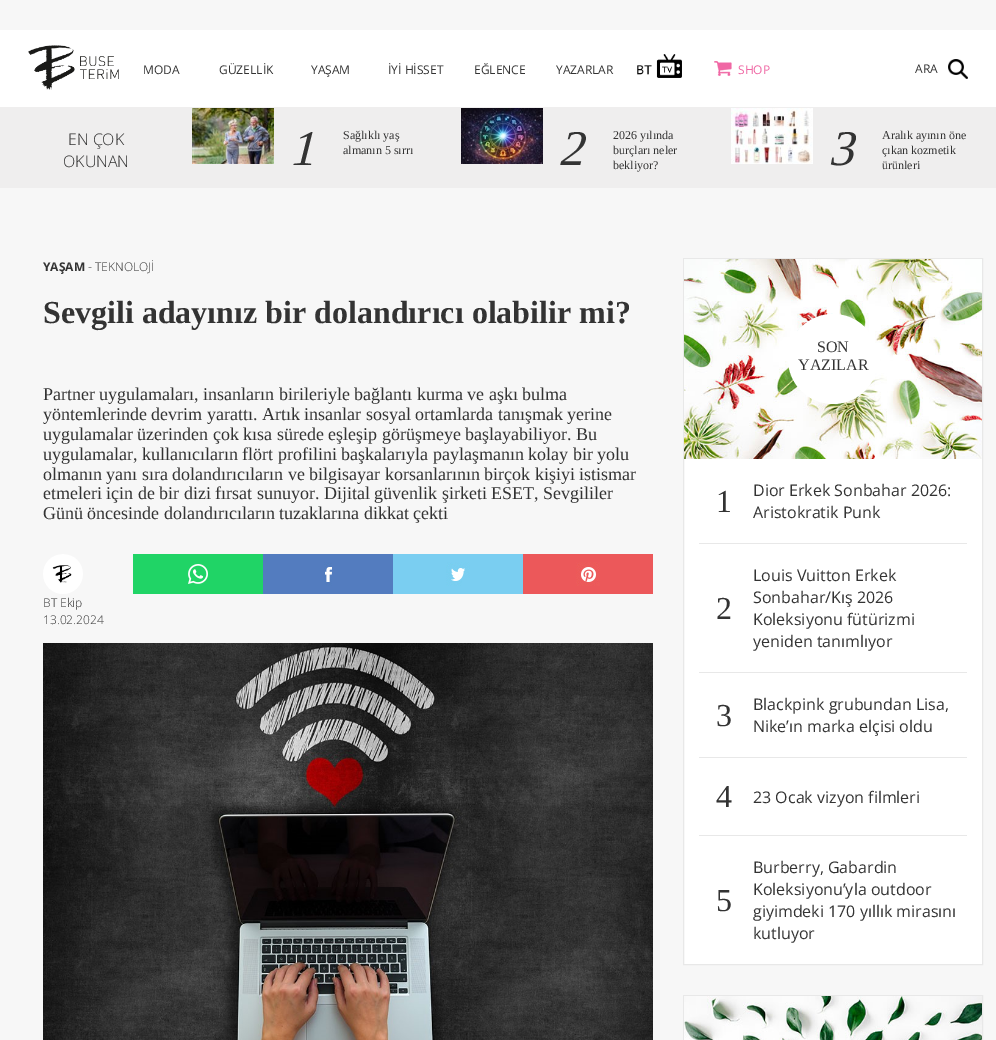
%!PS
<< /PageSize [996 1040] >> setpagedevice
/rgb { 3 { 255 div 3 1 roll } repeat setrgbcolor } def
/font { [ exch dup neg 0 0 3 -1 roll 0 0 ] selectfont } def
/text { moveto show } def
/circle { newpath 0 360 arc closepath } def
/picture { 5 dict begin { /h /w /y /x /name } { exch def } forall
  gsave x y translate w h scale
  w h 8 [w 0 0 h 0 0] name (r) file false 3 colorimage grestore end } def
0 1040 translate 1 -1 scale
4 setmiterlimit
247 247 247 rgb
0 0 996 1040 rectfill
255 255 255 rgb
0 30 996 77 rectfill
239 238 238 rgb
0 107 996 81 rectfill
(img_01.rgb) 28 45 91 45 picture
(img_02.rgb) 637 54 45 24 picture
(img_03.rgb) 714 61 18 15 picture
(img_04.rgb) 948 59 20 20 picture
(img_05.rgb) 192 108 82 56 picture
(img_06.rgb) 461 108 82 56 picture
(img_07.rgb) 731 108 82 56 picture
(img_08.rgb) 133 554 130 40 picture
(img_09.rgb) 263 554 130 40 picture
(img_10.rgb) 393 554 130 40 picture
(img_11.rgb) 523 554 130 40 picture
(img_12.rgb) 43 554 40 40 picture
(img_13.rgb) 43 643 610 397 picture
255 255 255 rgb
684 459 298 505 rectfill
232 232 232 rgb
683.5 258.5 299 706 rectstroke
(img_14.rgb) 684 259 298 200 picture
255 255 255 rgb
833 359 45 circle fill
232 232 232 rgb
699 543 268 1 rectfill
699 672 268 1 rectfill
699 757 268 1 rectfill
699 835 268 1 rectfill
683.5 995.5 299 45 rectstroke
(img_15.rgb) 684 996 298 44 picture
/OpenSans-Regular 12 font
51 51 51 rgb
(MODA) 143 74 text
(GÜZELLİK) 219 74 text
(YAŞAM) 311 74 text
(İYİ HİSSET) 388 74 text
(EĞLENCE) 474 74 text
(YAZARLAR) 556 74 text
240 103 164 rgb
(SHOP) 738 74 text
51 51 51 rgb
(ARA) 915 73 text
/OpenSans-Light 16 font
(EN ÇOK) 68 145 text
(OKUNAN) 63 167 text
/Tinos-Italic 50 font
(1) 289 165 text
/Tinos-Regular 12 font
(Sağlıklı yaş) 343 139 text
(almanın 5 sırrı) 343 154 text
/Tinos-Italic 50 font
(2) 558 165 text
/Tinos-Regular 12 font
(2026 yılında) 613 139 text
(burçları neler) 613 154 text
(bekliyor?) 613 169 text
/Tinos-Italic 50 font
(3) 828 165 text
/Tinos-Regular 12 font
(Aralık ayının öne) 882 139 text
(çıkan kozmetik) 882 154 text
(ürünleri) 882 169 text
/OpenSans-Bold 12 font
(YAŞAM) 43 271 text
/OpenSans-Light 12 font
(- TEKNOLOJİ) 88 271 text
/Tinos-Bold 32 font
(Sevgili adayınız bir dolandırıcı olabilir mi?) 43 323 text
/Tinos-Regular 18 font
(Partner uygulamaları, insanların birileriyle bağlantı kurma ve aşkı bulma) 43 400 text
(yöntemlerinde devrim yarattı. Artık insanlar sosyal ortamlarda tanışmak yerine) 43 420 text
(uygulamalar üzerinden çok kısa sürede eşleşip görüşmeye başlayabiliyor. Bu) 43 440 text
(uygulamalar, kullanıcıların flört profilini başkalarıyla paylaşmanın kolay bir yolu) 43 460 text
(olmanın yanı sıra dolandırıcıların ve bilgisayar korsanlarının birçok kişiyi istismar) 43 480 text
(etmeleri için de bir dizi fırsat sunuyor. Dijital güvenlik şirketi ESET, Sevgililer) 43 499 text
(Günü öncesinde dolandırıcıların tuzaklarına dikkat çekti) 43 519 text
/OpenSans-Light 12 font
(BT Ekip) 43 607 text
(13.02.2024) 43 624 text
/Tinos-Regular 16 font
(SON) 817 352 text
(YAZILAR) 798 370 text
/Tinos-Regular 32 font
(1) 716 512 text
/OpenSans-Regular 16 font
(Dior Erkek Sonbahar 2026:) 753 496 text
(Aristokratik Punk) 753 518 text
/Tinos-Regular 32 font
(2) 716 619 text
/OpenSans-Regular 16 font
(Louis Vuitton Erkek) 753 581 text
(Sonbahar/Kış 2026) 753 603 text
(Koleksiyonu fütürizmi) 753 625 text
(yeniden tanımlıyor) 753 647 text
/Tinos-Regular 32 font
(3) 716 726 text
/OpenSans-Regular 16 font
(Blackpink grubundan Lisa,) 753 710 text
(Nike’ın marka elçisi oldu) 753 732 text
/Tinos-Regular 32 font
(4) 716 807 text
/OpenSans-Regular 16 font
(23 Ocak vizyon filmleri) 753 803 text
/Tinos-Regular 32 font
(5) 716 911 text
/OpenSans-Regular 16 font
(Burberry, Gabardin) 753 873 text
(Koleksiyonu’yla outdoor) 753 895 text
(giyimdeki 170 yıllık mirasını) 753 917 text
(kutluyor) 753 939 text
showpage
